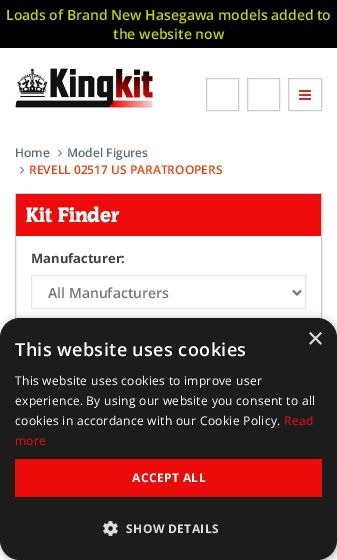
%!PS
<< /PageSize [337 560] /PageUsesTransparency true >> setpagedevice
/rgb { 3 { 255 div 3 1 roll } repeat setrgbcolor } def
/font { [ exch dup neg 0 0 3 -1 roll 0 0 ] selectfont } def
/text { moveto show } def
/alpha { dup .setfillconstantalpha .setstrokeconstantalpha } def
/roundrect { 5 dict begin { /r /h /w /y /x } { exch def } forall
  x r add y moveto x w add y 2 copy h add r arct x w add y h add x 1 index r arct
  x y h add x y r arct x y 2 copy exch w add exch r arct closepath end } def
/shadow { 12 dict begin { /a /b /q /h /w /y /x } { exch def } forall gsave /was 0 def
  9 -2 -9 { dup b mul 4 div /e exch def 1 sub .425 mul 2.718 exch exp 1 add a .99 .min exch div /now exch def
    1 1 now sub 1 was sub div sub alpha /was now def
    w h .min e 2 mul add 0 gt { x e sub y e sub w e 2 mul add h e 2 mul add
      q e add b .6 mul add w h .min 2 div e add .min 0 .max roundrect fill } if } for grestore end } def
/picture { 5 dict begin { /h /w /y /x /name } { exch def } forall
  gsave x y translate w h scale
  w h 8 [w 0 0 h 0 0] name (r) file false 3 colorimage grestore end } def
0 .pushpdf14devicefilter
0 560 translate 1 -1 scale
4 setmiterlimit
255 255 255 rgb
0 0 337 560 rectfill
0 0 0 rgb
0 0 337 48 rectfill
(img_01.rgb) 15 68 138 40 picture
204 204 204 rgb
206.5 78.5 32 32 rectstroke
247.5 78.5 32 32 rectstroke
288.5 78.5 33 32 rectstroke
(img_02.rgb) 299 90 12 10 picture
(img_03.rgb) 58 149 4 8 picture
(img_03.rgb) 20 166 4 8 picture
15.5 193.5 306 346 rectstroke
237 11 11 rgb
16 194 305 42 rectfill
228 230 232 rgb
31.5 275.5 274 33 rectstroke
119 119 119 rgb
2 setlinewidth
293 290.5 moveto 4 4 rlineto 4 -4 rlineto stroke
0 0 0 rgb
1 320 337 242 20 4 0.35 shadow
28 28 28 rgb
0 318 337 242 20 roundrect fill
235 11 9 rgb
15 459 307 38 rectfill
(img_04.rgb) 103 521 15 15 picture
/OpenSans-SemiBold 14 font
197 207 12 rgb
(Loads of Brand New Hasegawa models added to) 6 20 text
(the website now) 113 39 text
/OpenSans-SemiBold 12 font
95 109 123 rgb
(Home) 15 157 text
(Model Figures) 67 157 text
230 64 12 rgb
(REVELL 02517 US PARATROOPERS) 29 174 text
/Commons-Thin 20 font
255 255 255 rgb
(Kit Finder) 26 222 text
/OpenSans-Bold 13 font
67 67 67 rgb
(Manufacturer:) 31 263 text
/OpenSans-SemiBold 14 font
119 119 119 rgb
(All Manufacturers) 48 298 text
/LiberationSans-Regular 29 font
221 221 221 rgb
(×) 307 348 text
/OpenSans-SemiBold 18 font
255 255 255 rgb
15 356 moveto 0.4 0 (This website uses cookies) ashow
/OpenSans-Regular 12 font
15 385 moveto 0.3 0 (This website uses cookies to improve user) ashow
15 405 moveto 0.3 0 (experience. By using our website you consent to all) ashow
15 425 moveto 0.3 0 (cookies in accordance with our Cookie Policy.) ashow
235 11 9 rgb
284 425 moveto 0.3 0 (Read) ashow
15 445 moveto 0.3 0 (more) ashow
/OpenSans-Bold 12 font
255 255 255 rgb
132 482 moveto 0.4 0 (ACCEPT ALL) ashow
221 221 221 rgb
126 533 moveto 0.4 0 (SHOW DETAILS) ashow
.poppdf14devicefilter showpage
